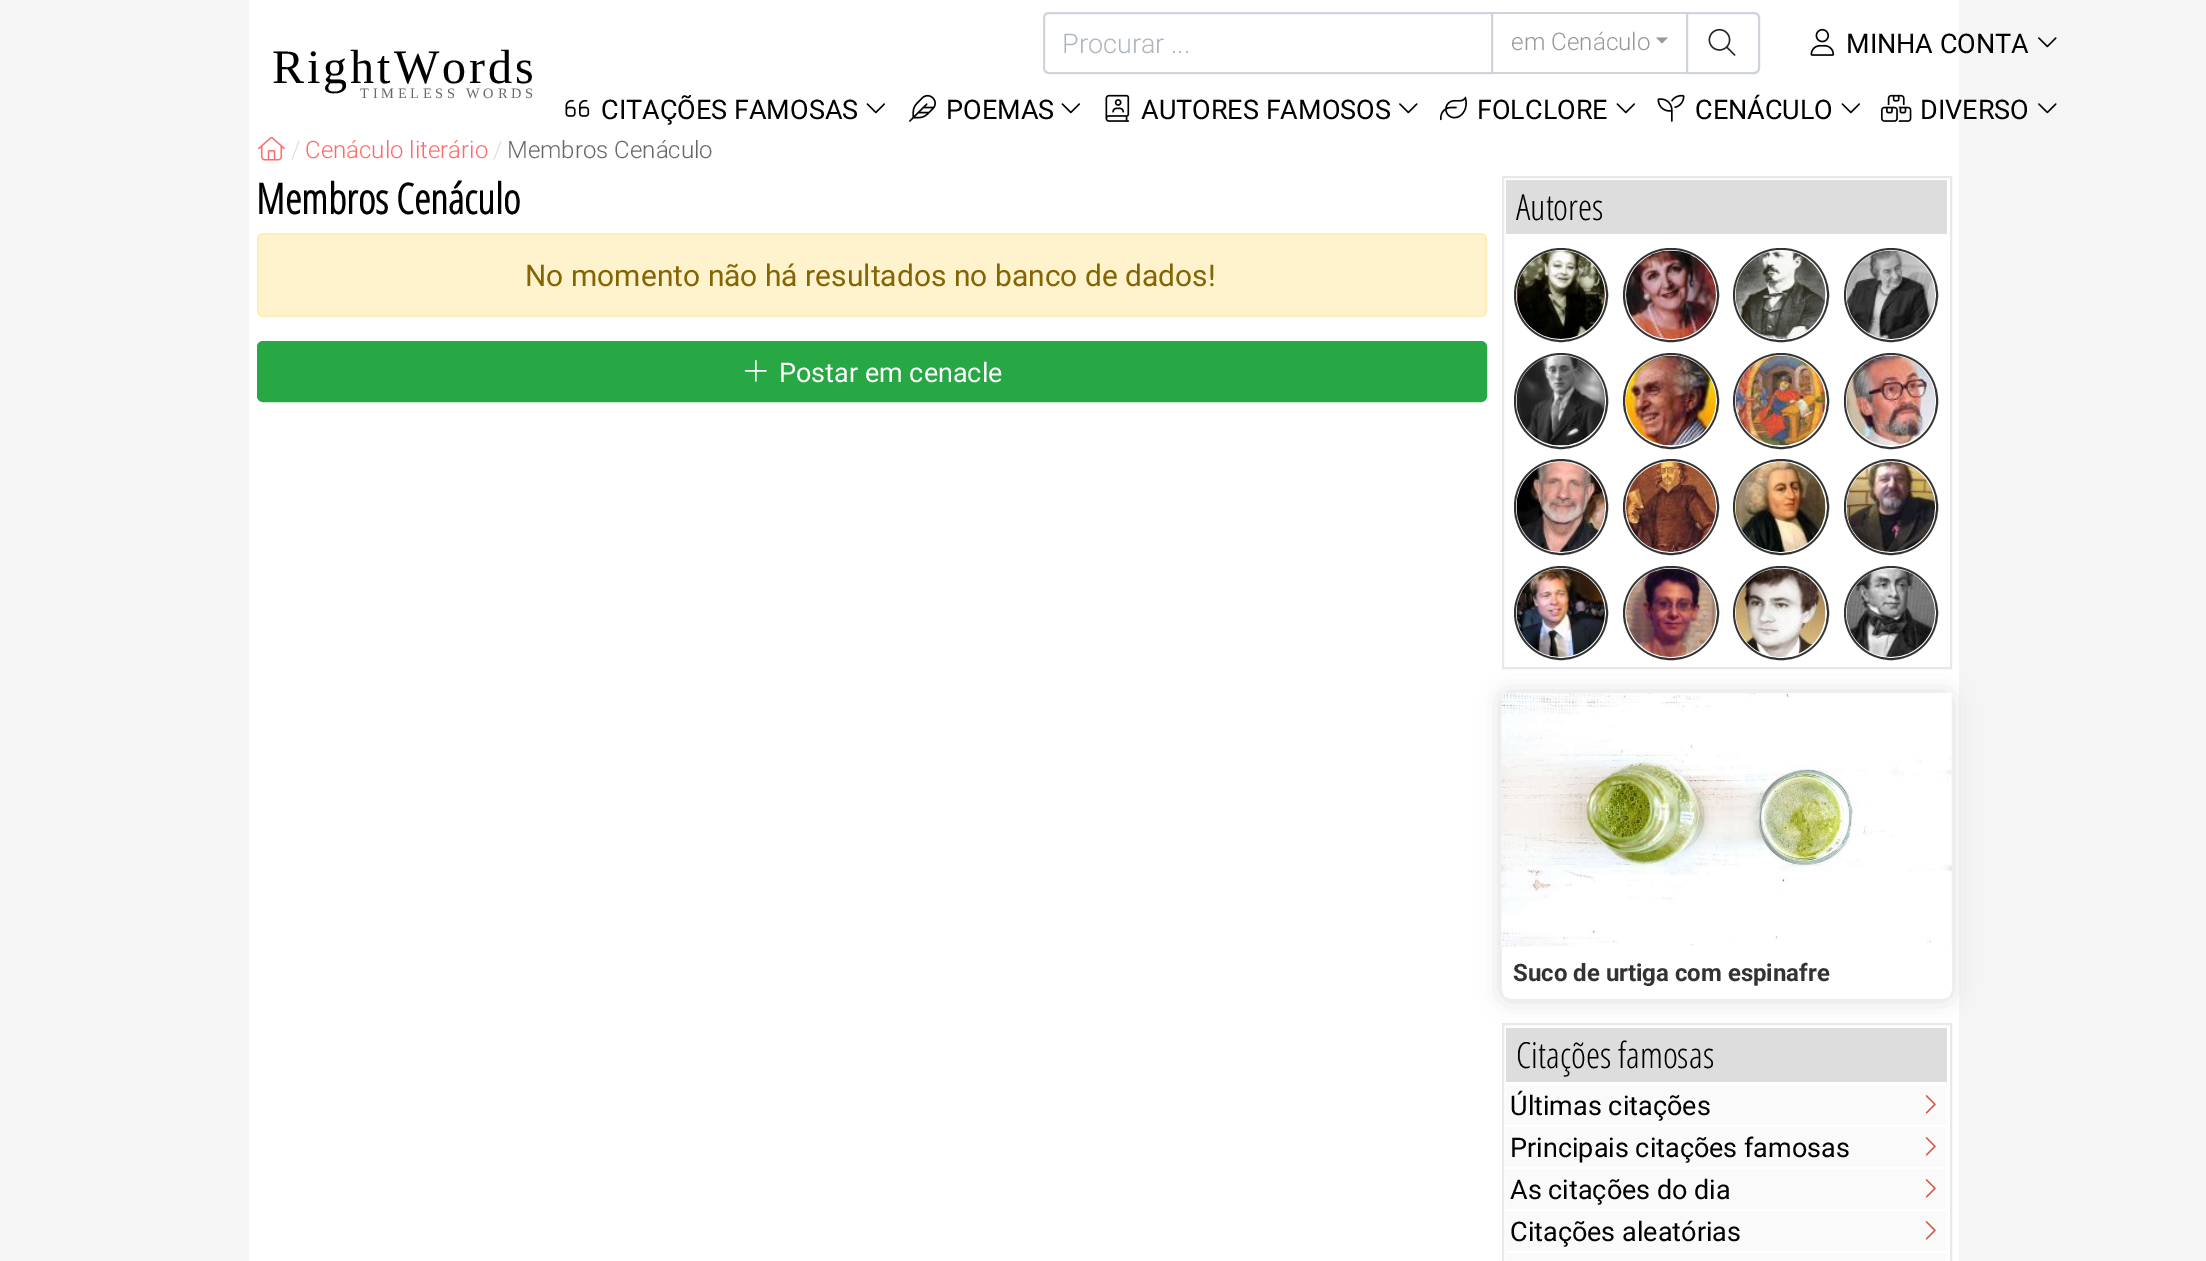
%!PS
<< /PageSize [2206 1261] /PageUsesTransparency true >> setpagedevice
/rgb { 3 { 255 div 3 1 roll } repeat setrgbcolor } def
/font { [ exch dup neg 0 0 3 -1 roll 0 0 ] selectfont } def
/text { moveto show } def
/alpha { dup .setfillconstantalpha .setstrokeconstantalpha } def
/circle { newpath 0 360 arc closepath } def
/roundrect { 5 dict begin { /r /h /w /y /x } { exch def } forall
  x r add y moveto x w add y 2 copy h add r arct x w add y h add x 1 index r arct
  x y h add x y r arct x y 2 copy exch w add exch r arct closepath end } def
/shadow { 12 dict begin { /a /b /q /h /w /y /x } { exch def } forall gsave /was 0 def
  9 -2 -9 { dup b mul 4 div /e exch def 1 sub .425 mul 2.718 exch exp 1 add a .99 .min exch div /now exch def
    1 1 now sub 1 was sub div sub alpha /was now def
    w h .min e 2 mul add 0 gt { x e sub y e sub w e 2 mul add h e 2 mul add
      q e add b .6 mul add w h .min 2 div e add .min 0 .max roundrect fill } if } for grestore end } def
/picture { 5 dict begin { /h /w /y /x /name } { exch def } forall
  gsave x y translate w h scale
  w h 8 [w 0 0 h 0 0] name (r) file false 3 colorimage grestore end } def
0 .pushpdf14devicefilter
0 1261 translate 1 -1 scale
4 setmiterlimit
245 245 245 rgb
0 0 2206 1261 rectfill
255 255 255 rgb
249 0 1710 1261 rectfill
206 212 218 rgb
2 setlinewidth
1049 13 moveto 443 0 rlineto 0 60 rlineto -443 0 rlineto -3 0 -5 -2 -5 -5 rcurveto 0 -50 rlineto 0 -3 2 -5 5 -5 rcurveto closepath stroke
1491 12 195 2 rectfill
1491 72 195 2 rectfill
153 153 153 rgb
1656 37.5 moveto 12 0 rlineto -6 6 rlineto closepath fill
206 212 218 rgb
1687 13 moveto 67 0 rlineto 3 0 5 2 5 5 rcurveto 0 50 rlineto 0 3 -2 5 -5 5 rcurveto -67 0 rlineto closepath stroke
(img_01.rgb) 1708 28 28 28 picture
(img_02.rgb) 1810 28 25 28 picture
(img_03.rgb) 2038 37 19 11 picture
(img_04.rgb) 565 99 25 18 picture
(img_05.rgb) 866 103 19 11 picture
(img_06.rgb) 909 94 27 28 picture
(img_05.rgb) 1061 103 19 11 picture
(img_07.rgb) 1105 94 25 28 picture
(img_08.rgb) 1399 103 19 11 picture
(img_09.rgb) 1440 96 27 25 picture
(img_05.rgb) 1616 103 19 11 picture
(img_10.rgb) 1657 94 28 28 picture
(img_05.rgb) 1841 103 19 11 picture
(img_11.rgb) 1881 94 31 28 picture
(img_03.rgb) 2038 103 19 11 picture
(img_12.rgb) 258 137 27 24 picture
255 243 205 rgb
258 234 1228 82 5 roundrect gsave fill grestore
255 238 186 rgb
stroke
40 167 69 rgb
258 342 1228 59 5 roundrect gsave fill grestore
stroke
(img_13.rgb) 744 360 23 22 picture
233 231 234 rgb
1503 177 448 491 rectstroke
221 221 221 rgb
1506 180 441 54 rectfill
51 51 51 rgb
1561 295 46 circle stroke
(img_14.rgb) 1516 250 89 89 picture
1624 249 94 92 46 roundrect stroke
(img_15.rgb) 1626 250 90 89 picture
1734 249 94 92 46 roundrect stroke
(img_16.rgb) 1735 250 91 89 picture
1891 295 46 circle stroke
(img_17.rgb) 1846 250 89 89 picture
1515 354 92 94 46 roundrect stroke
(img_18.rgb) 1516 355 89 91 picture
1671 401 47 circle stroke
(img_19.rgb) 1626 355 90 91 picture
1781 401 47 circle stroke
(img_20.rgb) 1735 355 91 91 picture
1845 354 92 94 46 roundrect stroke
(img_21.rgb) 1846 355 89 91 picture
1515 460 92 94 46 roundrect stroke
(img_22.rgb) 1516 462 89 90 picture
1671 507 47 circle stroke
(img_23.rgb) 1626 462 90 90 picture
1781 507 47 circle stroke
(img_24.rgb) 1735 462 91 90 picture
1845 460 92 94 46 roundrect stroke
(img_25.rgb) 1846 462 89 90 picture
gsave
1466 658 moveto 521 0 rlineto 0 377 rlineto -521 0 rlineto closepath 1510 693 moveto 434 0 rlineto 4.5 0 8 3.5 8 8 rcurveto 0 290 rlineto 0 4.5 -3.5 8 -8 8 rcurveto -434 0 rlineto -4.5 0 -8 -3.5 -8 -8 rcurveto 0 -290 rlineto 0 -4.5 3.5 -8 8 -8 rcurveto closepath eoclip newpath
221 221 221 rgb
1500 692 453 309 9 11 1 shadow
grestore
1561 613 46 circle stroke
(img_26.rgb) 1516 568 89 89 picture
1624 567 94 92 46 roundrect stroke
(img_27.rgb) 1626 568 90 89 picture
1734 567 94 92 46 roundrect stroke
(img_28.rgb) 1735 568 91 89 picture
1891 613 46 circle stroke
(img_29.rgb) 1846 568 89 89 picture
(img_30.rgb) 1501 693 451 254 picture
233 231 234 rgb
1503 1024 448 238 rectstroke
221 221 221 rgb
1506 1028 441 54 rectfill
250 250 250 rgb
1506 1085 441 40 rectfill
(img_31.rgb) 1925 1095 11 19 picture
1506 1127 441 40 rectfill
(img_31.rgb) 1925 1137 11 19 picture
1506 1169 441 40 rectfill
(img_31.rgb) 1925 1179 11 19 picture
1506 1211 441 40 rectfill
(img_31.rgb) 1925 1221 11 19 picture
1506 1253 441 8 rectfill
/LiberationSerif-Regular 48 font
0 0 0 rgb
272 83 moveto 3 0 (RightWords) ashow
/LiberationSerif-Regular 14.4 font
102 102 102 rgb
360 98 moveto 3.75 0 (TIMELESS WORDS) ashow
/Roboto-Light 27 font
173 181 189 rgb
(Procurar ...) 1062 53 text
/Roboto-Light 24.25 font
153 153 153 rgb
(em Cenáculo) 1511 50 text
/Roboto-Regular 27 font
0 0 0 rgb
(MINHA CONTA) 1846 53 text
(CITAÇÕES FAMOSAS) 601 119 text
(POEMAS) 946 119 text
(AUTORES FAMOSOS) 1141 119 text
(FOLCLORE) 1477 119 text
(CENÁCULO) 1695 119 text
(DIVERSO) 1920 119 text
/Roboto-Light 24 font
221 221 221 rgb
(/) 291 158 text
255 107 107 rgb
(Cenáculo literário) 305 158 text
221 221 221 rgb
(/) 493 158 text
102 102 102 rgb
(Membros Cenáculo) 507 158 text
/OpenSansCondensed-Bold 42 font
0 0 0 rgb
(Membros Cenáculo) 256 214 text
/Roboto-Regular 30 font
133 100 4 rgb
(No momento não há resultados no banco de dados!) 525 286 text
/Roboto-Regular 27 font
255 255 255 rgb
(Postar em cenacle) 779 382 text
/OpenSansCondensed-Light 36 font
0 0 0 rgb
(Autores) 1516 220 text
/Roboto-Bold 24 font
51 51 51 rgb
(Suco de urtiga com espinafre) 1513 981 text
/OpenSansCondensed-Light 36 font
0 0 0 rgb
(Citações famosas) 1516 1068 text
/Roboto-Regular 27 font
(Últimas citações) 1510 1115 text
(Principais citações famosas) 1510 1157 text
(As citações do dia) 1510 1199 text
(Citações aleatórias) 1510 1241 text
.poppdf14devicefilter showpage
